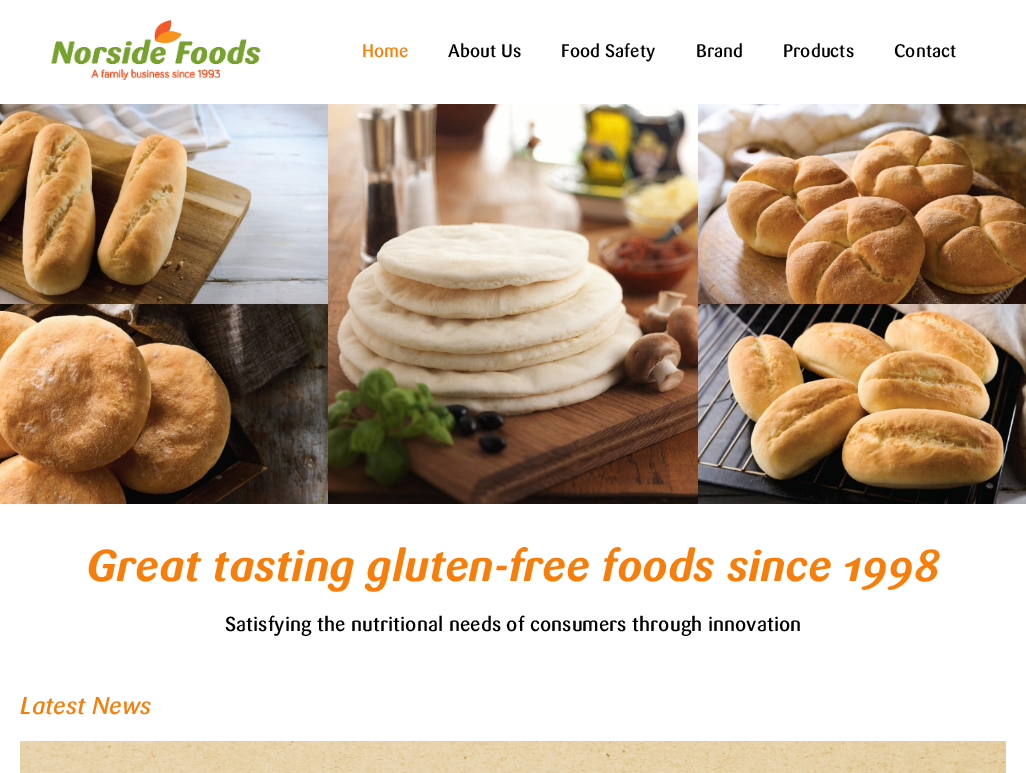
%!PS
<< /PageSize [1026 773] >> setpagedevice
/rgb { 3 { 255 div 3 1 roll } repeat setrgbcolor } def
/font { [ exch dup neg 0 0 3 -1 roll 0 0 ] selectfont } def
/text { moveto show } def
/picture { 5 dict begin { /h /w /y /x /name } { exch def } forall
  gsave x y translate w h scale
  w h 8 [w 0 0 h 0 0] name (r) file false 3 colorimage grestore end } def
0 773 translate 1 -1 scale
4 setmiterlimit
255 255 255 rgb
0 0 1026 773 rectfill
(img_01.rgb) 51 20 210 60 picture
(img_02.rgb) 0 104 1026 400 picture
(img_03.rgb) 20 741 986 32 picture
/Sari-Medium 18 font
247 126 11 rgb
(Home) 362 57 text
0 0 0 rgb
(About Us) 448 57 text
(Food Safety) 561 57 text
(Brand) 696 57 text
(Products) 783 57 text
(Contact) 894 57 text
/Sari-BoldItalic 44 font
247 126 11 rgb
(Great tasting gluten-free foods since 1998) 86 581 text
/Sari-Medium 20 font
0 0 0 rgb
(Satisfying the nutritional needs of consumers through innovation) 225 631 text
/Sari-MediumItalic 24 font
247 126 11 rgb
(Latest News) 20 714 text
showpage
